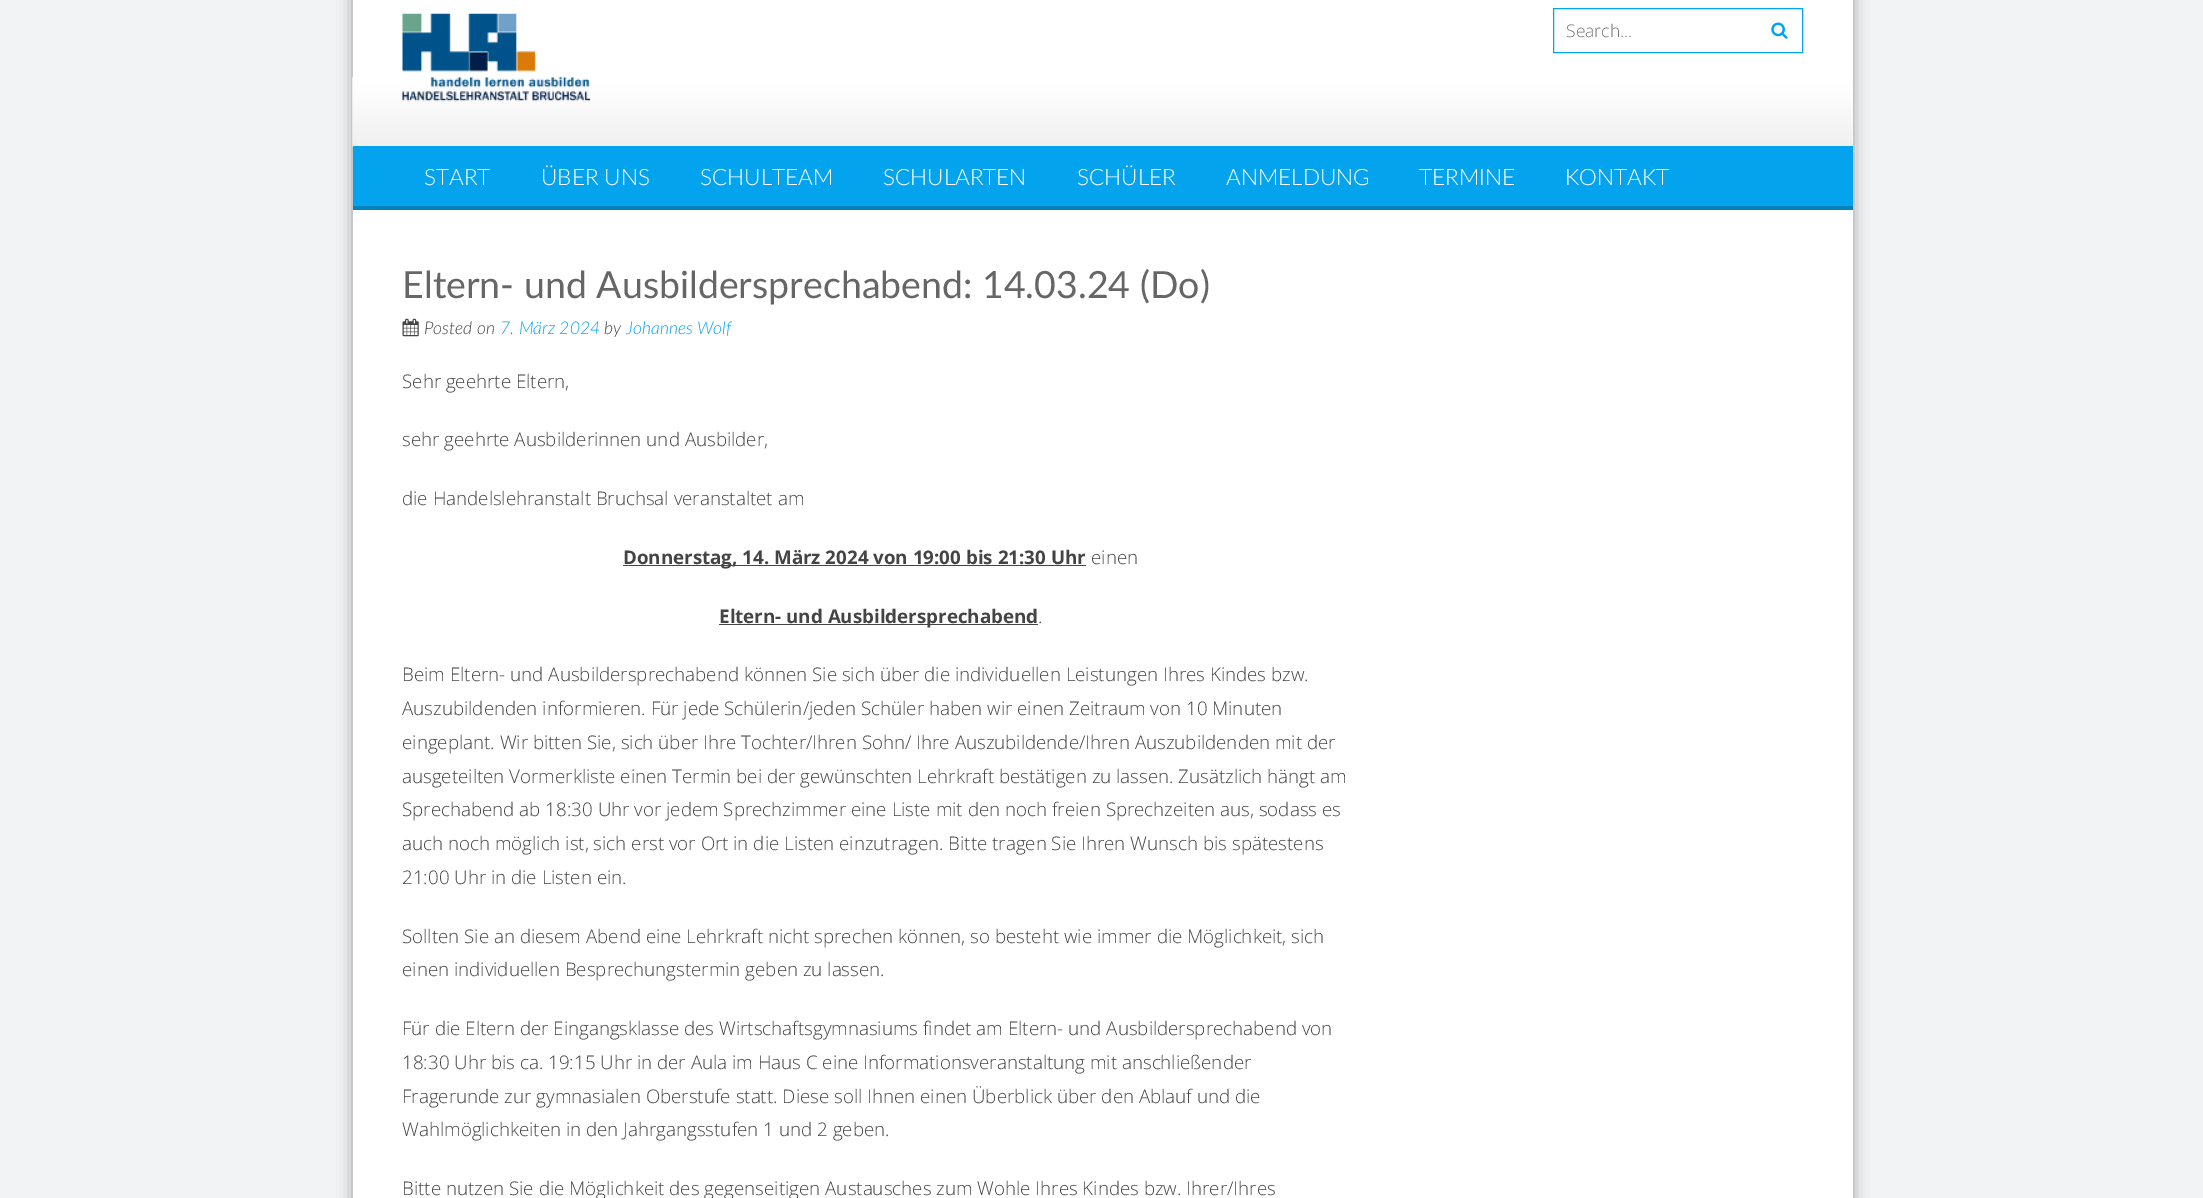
%!PS
<< /PageSize [2203 1198] /PageUsesTransparency true >> setpagedevice
/rgb { 3 { 255 div 3 1 roll } repeat setrgbcolor } def
/font { [ exch dup neg 0 0 3 -1 roll 0 0 ] selectfont } def
/text { moveto show } def
/alpha { dup .setfillconstantalpha .setstrokeconstantalpha } def
/roundrect { 5 dict begin { /r /h /w /y /x } { exch def } forall
  x r add y moveto x w add y 2 copy h add r arct x w add y h add x 1 index r arct
  x y h add x y r arct x y 2 copy exch w add exch r arct closepath end } def
/shadow { 12 dict begin { /a /b /q /h /w /y /x } { exch def } forall gsave /was 0 def
  9 -2 -9 { dup b mul 4 div /e exch def 1 sub .425 mul 2.718 exch exp 1 add a .99 .min exch div /now exch def
    1 1 now sub 1 was sub div sub alpha /was now def
    w h .min e 2 mul add 0 gt { x e sub y e sub w e 2 mul add h e 2 mul add
      q e add b .6 mul add w h .min 2 div e add .min 0 .max roundrect fill } if } for grestore end } def
/picture { 5 dict begin { /h /w /y /x /name } { exch def } forall
  gsave x y translate w h scale
  w h 8 [w 0 0 h 0 0] name (r) file false 3 colorimage grestore end } def
0 .pushpdf14devicefilter
0 1198 translate 1 -1 scale
4 setmiterlimit
242 243 244 rgb
0 0 2203 1198 rectfill
153 153 153 rgb
353 -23 1500 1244 0 7.5 1 shadow
255 255 255 rgb
353 0 1500 1198 rectfill
(img_01.rgb) 352 77 1501 70 picture
(img_02.rgb) 402 13 188 89 picture
4 163 237 rgb
1553.5 8.5 249 44 rectstroke
(img_03.rgb) 1771 22 17 17 picture
353 146 1500 60 rectfill
3 130 190 rgb
353 206 1500 4 rectfill
(img_04.rgb) 402 318 17 19 picture
68 68 68 rgb
623 565 463 1 rectfill
719 624 319 1 rectfill
/OpenSans-Light 17.5 font
117 117 117 rgb
(Search...) 1566 37 text
/Lato-Light 22.5 font
255 255 255 rgb
(START) 424 185 text
(ÜBER UNS) 541 185 text
(SCHULTEAM) 700 185 text
(SCHULARTEN) 883 185 text
(SCHÜLER) 1077 185 text
(ANMELDUNG) 1226 185 text
(TERMINE) 1419 185 text
(KONTAKT) 1565 185 text
/Lato-Regular 37.5 font
102 102 102 rgb
(Eltern- und Ausbildersprechabend: 14.03.24 \(Do\)) 402 298 text
/Lato-LightItalic 17.5 font
68 68 68 rgb
(Posted on) 424 334 text
4 163 237 rgb
(7. März 2024) 500 334 text
68 68 68 rgb
(by) 604 334 text
4 163 237 rgb
(Johannes Wolf) 626 334 text
/OpenSans-Light 18.75 font
68 68 68 rgb
(Sehr geehrte Eltern,) 402 388 text
(sehr geehrte Ausbilderinnen und Ausbilder,) 402 446 text
(die Handelslehranstalt Bruchsal veranstaltet am) 402 505 text
/OpenSans-Bold 18.75 font
(Donnerstag, 14. März 2024 von 19:00 bis 21:30 Uhr) 623 564 text
/OpenSans-Light 18.75 font
(einen) 1091 564 text
/OpenSans-Bold 18.75 font
(Eltern- und Ausbildersprechabend) 719 623 text
/OpenSans-Light 18.75 font
(.) 1038 623 text
(Beim Eltern- und Ausbildersprechabend können Sie sich über die individuellen Leistungen Ihres Kindes bzw.) 402 681 text
(Auszubildenden informieren. Für jede Schülerin/jeden Schüler haben wir einen Zeitraum von 10 Minuten) 402 715 text
(eingeplant. Wir bitten Sie, sich über Ihre Tochter/Ihren Sohn/ Ihre Auszubildende/Ihren Auszubildenden mit der) 402 749 text
(ausgeteilten Vormerkliste einen Termin bei der gewünschten Lehrkraft bestätigen zu lassen. Zusätzlich hängt am) 402 783 text
(Sprechabend ab 18:30 Uhr vor jedem Sprechzimmer eine Liste mit den noch freien Sprechzeiten aus, sodass es) 402 816 text
(auch noch möglich ist, sich erst vor Ort in die Listen einzutragen. Bitte tragen Sie Ihren Wunsch bis spätestens) 402 850 text
(21:00 Uhr in die Listen ein.) 402 884 text
(Sollten Sie an diesem Abend eine Lehrkraft nicht sprechen können, so besteht wie immer die Möglichkeit, sich) 402 943 text
(einen individuellen Besprechungstermin geben zu lassen.) 402 976 text
(Für die Eltern der Eingangsklasse des Wirtschaftsgymnasiums findet am Eltern- und Ausbildersprechabend von) 402 1035 text
(18:30 Uhr bis ca. 19:15 Uhr in der Aula im Haus C eine Informationsveranstaltung mit anschließender) 402 1069 text
(Fragerunde zur gymnasialen Oberstufe statt. Diese soll Ihnen einen Überblick über den Ablauf und die) 402 1103 text
(Wahlmöglichkeiten in den Jahrgangsstufen 1 und 2 geben.) 402 1136 text
(Bitte nutzen Sie die Möglichkeit des gegenseitigen Austausches zum Wohle Ihres Kindes bzw. Ihrer/Ihres) 402 1195 text
.poppdf14devicefilter showpage
